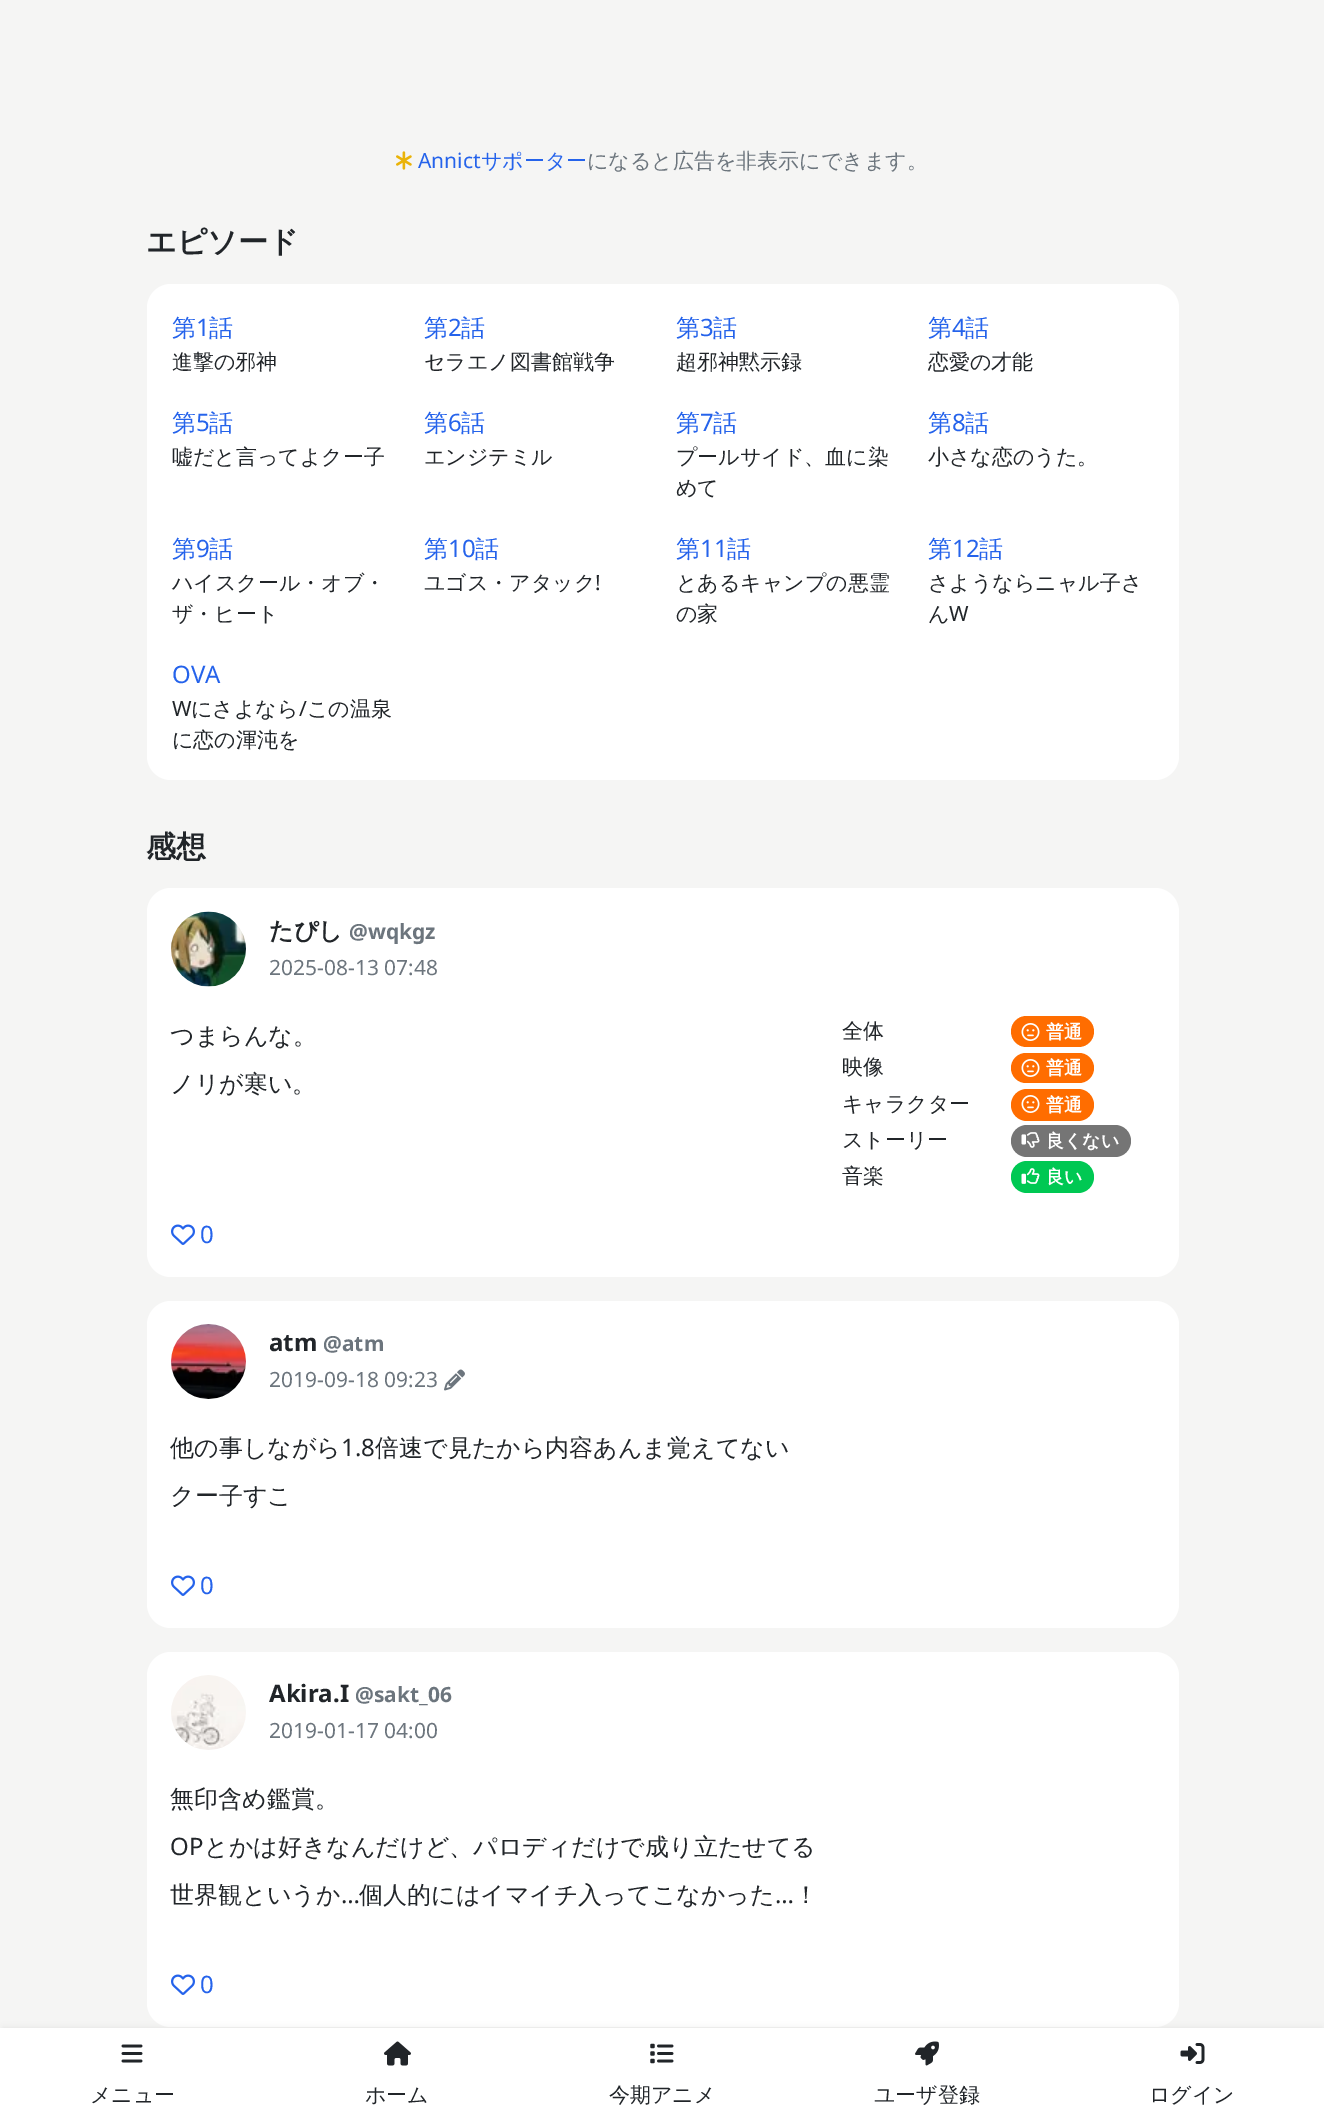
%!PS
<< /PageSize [1324 2116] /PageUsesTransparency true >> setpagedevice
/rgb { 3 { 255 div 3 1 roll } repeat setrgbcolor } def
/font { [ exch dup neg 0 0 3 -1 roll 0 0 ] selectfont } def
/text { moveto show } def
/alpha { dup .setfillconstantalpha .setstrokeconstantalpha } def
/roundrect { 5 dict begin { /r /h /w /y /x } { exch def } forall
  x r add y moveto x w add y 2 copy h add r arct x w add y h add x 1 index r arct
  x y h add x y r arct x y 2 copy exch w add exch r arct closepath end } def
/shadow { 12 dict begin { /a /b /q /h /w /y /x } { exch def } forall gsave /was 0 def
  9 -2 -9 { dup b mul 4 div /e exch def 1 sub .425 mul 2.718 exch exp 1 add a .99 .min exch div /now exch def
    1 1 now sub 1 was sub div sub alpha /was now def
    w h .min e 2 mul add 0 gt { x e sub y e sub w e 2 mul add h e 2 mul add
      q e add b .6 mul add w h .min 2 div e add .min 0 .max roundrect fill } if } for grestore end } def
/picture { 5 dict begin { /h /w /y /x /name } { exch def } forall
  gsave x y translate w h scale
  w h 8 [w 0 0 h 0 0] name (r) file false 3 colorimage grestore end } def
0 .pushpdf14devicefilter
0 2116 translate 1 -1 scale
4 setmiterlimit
245 245 244 rgb
0 0 1324 2116 rectfill
(img_01.rgb) 396 151 16 19 picture
255 255 255 rgb
147 284 1032 496 24 roundrect fill
147 888 1032 389 24 roundrect fill
(img_02.rgb) 171 911 75 76 picture
255 109 0 rgb
1011 1016 83 31 15.5 roundrect fill
(img_03.rgb) 1021 1023 19 18 picture
1011 1053 83 30 15 roundrect fill
(img_03.rgb) 1021 1059 19 18 picture
1011 1089 83 32 16 roundrect fill
(img_03.rgb) 1021 1095 19 18 picture
117 117 117 rgb
1011 1125 120 32 16 roundrect fill
(img_04.rgb) 1021 1132 19 16 picture
0 200 83 rgb
1011 1161 83 32 16 roundrect fill
(img_05.rgb) 1021 1168 19 16 picture
(img_06.rgb) 171 1224 24 21 picture
255 255 255 rgb
147 1301 1032 327 24 roundrect fill
(img_07.rgb) 171 1324 75 75 picture
(img_08.rgb) 444 1369 21 22 picture
(img_06.rgb) 171 1575 24 21 picture
147 1652 1032 375 24 roundrect fill
(img_09.rgb) 171 1675 75 75 picture
(img_06.rgb) 171 1974 24 21 picture
0 0 0 rgb
3 2028 1319 83 0 3 0.07 shadow
255 255 255 rgb
0 2028 1324 88 rectfill
(img_10.rgb) 121 2044 22 19 picture
(img_11.rgb) 384 2041 27 25 picture
(img_12.rgb) 650 2043 24 21 picture
(img_13.rgb) 915 2041 24 25 picture
(img_14.rgb) 1180 2043 25 21 picture
/NotoSans-Regular 21 font
37 99 235 rgb
(Annict) 418 168 text
/WenQuanYiZenHei-Medium 21 font
(サポーター) 481 168 text
108 117 125 rgb
(になると広告を非表示にできます。) 587 168 text
/WenQuanYiZenHei-Bold 30 font
33 37 41 rgb
(エピソード) 146 252 text
/WenQuanYiZenHei-Medium 24 font
37 99 235 rgb
(第) 172 336 text
/NotoSans-Regular 24 font
(1) 196 336 text
/WenQuanYiZenHei-Medium 24 font
(話) 209 336 text
/WenQuanYiZenHei-Medium 21 font
33 37 41 rgb
(進撃の邪神) 172 369 text
/WenQuanYiZenHei-Medium 24 font
37 99 235 rgb
(第) 424 336 text
/NotoSans-Regular 24 font
(2) 448 336 text
/WenQuanYiZenHei-Medium 24 font
(話) 461 336 text
/WenQuanYiZenHei-Medium 21 font
33 37 41 rgb
(セラエノ図書館戦争) 424 369 text
/WenQuanYiZenHei-Medium 24 font
37 99 235 rgb
(第) 676 336 text
/NotoSans-Regular 24 font
(3) 700 336 text
/WenQuanYiZenHei-Medium 24 font
(話) 713 336 text
/WenQuanYiZenHei-Medium 21 font
33 37 41 rgb
(超邪神黙示録) 676 369 text
/WenQuanYiZenHei-Medium 24 font
37 99 235 rgb
(第) 928 336 text
/NotoSans-Regular 24 font
(4) 952 336 text
/WenQuanYiZenHei-Medium 24 font
(話) 965 336 text
/WenQuanYiZenHei-Medium 21 font
33 37 41 rgb
(恋愛の才能) 928 369 text
/WenQuanYiZenHei-Medium 24 font
37 99 235 rgb
(第) 172 431 text
/NotoSans-Regular 24 font
(5) 196 431 text
/WenQuanYiZenHei-Medium 24 font
(話) 209 431 text
/WenQuanYiZenHei-Medium 21 font
33 37 41 rgb
(嘘だと言ってよクー子) 172 464 text
/WenQuanYiZenHei-Medium 24 font
37 99 235 rgb
(第) 424 431 text
/NotoSans-Regular 24 font
(6) 448 431 text
/WenQuanYiZenHei-Medium 24 font
(話) 461 431 text
/WenQuanYiZenHei-Medium 21 font
33 37 41 rgb
(エンジテミル) 424 464 text
/WenQuanYiZenHei-Medium 24 font
37 99 235 rgb
(第) 676 431 text
/NotoSans-Regular 24 font
(7) 700 431 text
/WenQuanYiZenHei-Medium 24 font
(話) 713 431 text
/WenQuanYiZenHei-Medium 21 font
33 37 41 rgb
(プールサイド、血に染) 676 464 text
(めて) 676 495 text
/WenQuanYiZenHei-Medium 24 font
37 99 235 rgb
(第) 928 431 text
/NotoSans-Regular 24 font
(8) 952 431 text
/WenQuanYiZenHei-Medium 24 font
(話) 965 431 text
/WenQuanYiZenHei-Medium 21 font
33 37 41 rgb
(小さな恋のうた。) 928 464 text
/WenQuanYiZenHei-Medium 24 font
37 99 235 rgb
(第) 172 557 text
/NotoSans-Regular 24 font
(9) 196 557 text
/WenQuanYiZenHei-Medium 24 font
(話) 209 557 text
/WenQuanYiZenHei-Medium 21 font
33 37 41 rgb
(ハイスクール・オブ・) 172 590 text
(ザ・ヒート) 172 621 text
/WenQuanYiZenHei-Medium 24 font
37 99 235 rgb
(第) 424 557 text
/NotoSans-Regular 24 font
(10) 448 557 text
/WenQuanYiZenHei-Medium 24 font
(話) 475 557 text
/WenQuanYiZenHei-Medium 21 font
33 37 41 rgb
(ユゴス・アタック) 424 590 text
/NotoSans-Regular 21 font
(!) 595 590 text
/WenQuanYiZenHei-Medium 24 font
37 99 235 rgb
(第) 676 557 text
/NotoSans-Regular 24 font
(11) 700 557 text
/WenQuanYiZenHei-Medium 24 font
(話) 727 557 text
/WenQuanYiZenHei-Medium 21 font
33 37 41 rgb
(とあるキャンプの悪霊) 676 590 text
(の家) 676 621 text
/WenQuanYiZenHei-Medium 24 font
37 99 235 rgb
(第) 928 557 text
/NotoSans-Regular 24 font
(12) 952 557 text
/WenQuanYiZenHei-Medium 24 font
(話) 979 557 text
/WenQuanYiZenHei-Medium 21 font
33 37 41 rgb
(さようならニャル子さ) 928 590 text
(ん) 928 621 text
/NotoSans-Regular 21 font
(W) 949 621 text
/NotoSans-Regular 24 font
37 99 235 rgb
(OVA) 172 683 text
/NotoSans-Regular 21 font
33 37 41 rgb
(W) 172 716 text
/WenQuanYiZenHei-Medium 21 font
(にさよなら) 191 716 text
/NotoSans-Regular 21 font
(/) 299 716 text
/WenQuanYiZenHei-Medium 21 font
(この温泉) 307 716 text
(に恋の渾沌を) 172 747 text
/WenQuanYiZenHei-Bold 30 font
(感想) 146 857 text
/WenQuanYiZenHei-Bold 24 font
(たぴし) 269 939 text
/NotoSans-Bold 21 font
108 117 125 rgb
(@wqkgz) 349 939 text
/NotoSans-Regular 21 font
(2025-08-13 07:48) 269 975 text
/WenQuanYiZenHei-Medium 24 font
33 37 41 rgb
(つまらんな。) 170 1044 text
(ノリが寒い。) 170 1092 text
/WenQuanYiZenHei-Medium 21 font
(全体) 842 1038 text
/WenQuanYiZenHei-Bold 18 font
255 255 255 rgb
(普通) 1046 1038 text
/WenQuanYiZenHei-Medium 21 font
33 37 41 rgb
(映像) 842 1074 text
/WenQuanYiZenHei-Bold 18 font
255 255 255 rgb
(普通) 1046 1074 text
/WenQuanYiZenHei-Medium 21 font
33 37 41 rgb
(キャラクター) 842 1111 text
/WenQuanYiZenHei-Bold 18 font
255 255 255 rgb
(普通) 1046 1111 text
/WenQuanYiZenHei-Medium 21 font
33 37 41 rgb
(ストーリー) 842 1147 text
/WenQuanYiZenHei-Bold 18 font
255 255 255 rgb
(良くない) 1046 1147 text
/WenQuanYiZenHei-Medium 21 font
33 37 41 rgb
(音楽) 842 1183 text
/WenQuanYiZenHei-Bold 18 font
255 255 255 rgb
(良い) 1046 1183 text
/NotoSans-Regular 24 font
37 99 235 rgb
(0) 200 1243 text
/NotoSans-Bold 24 font
33 37 41 rgb
(atm) 269 1351 text
/NotoSans-Bold 21 font
108 117 125 rgb
(@atm) 323 1351 text
/NotoSans-Regular 21 font
(2019-09-18 09:23) 269 1387 text
/WenQuanYiZenHei-Medium 24 font
33 37 41 rgb
(他の事しながら) 170 1456 text
/NotoSans-Regular 24 font
(1.8) 341 1456 text
/WenQuanYiZenHei-Medium 24 font
(倍速で見たから内容あんま覚えてない) 375 1456 text
(クー子すこ) 170 1504 text
/NotoSans-Regular 24 font
37 99 235 rgb
(0) 200 1594 text
/NotoSans-Bold 24 font
33 37 41 rgb
(Akira.I) 269 1702 text
/NotoSans-Bold 21 font
108 117 125 rgb
(@sakt_06) 355 1702 text
/NotoSans-Regular 21 font
(2019-01-17 04:00) 269 1738 text
/WenQuanYiZenHei-Medium 24 font
33 37 41 rgb
(無印含め鑑賞。) 170 1807 text
/NotoSans-Regular 24 font
(OP) 170 1855 text
/WenQuanYiZenHei-Medium 24 font
(とかは好きなんだけど、パロディだけで成り立たせてる) 204 1855 text
(世界観というか) 170 1903 text
/NotoSans-Regular 24 font
(…) 341 1903 text
/WenQuanYiZenHei-Medium 24 font
(個人的にはイマイチ入ってこなかった) 359 1903 text
/NotoSans-Regular 24 font
(…) 775 1903 text
/WenQuanYiZenHei-Medium 24 font
(！) 794 1903 text
/NotoSans-Regular 24 font
37 99 235 rgb
(0) 200 1993 text
/WenQuanYiZenHei-Medium 21 font
33 37 41 rgb
(メニュー) 90 2102 text
(ホーム) 365 2102 text
(今期アニメ) 609 2102 text
(ユーザ登録) 874 2102 text
(ログイン) 1149 2102 text
.poppdf14devicefilter showpage
